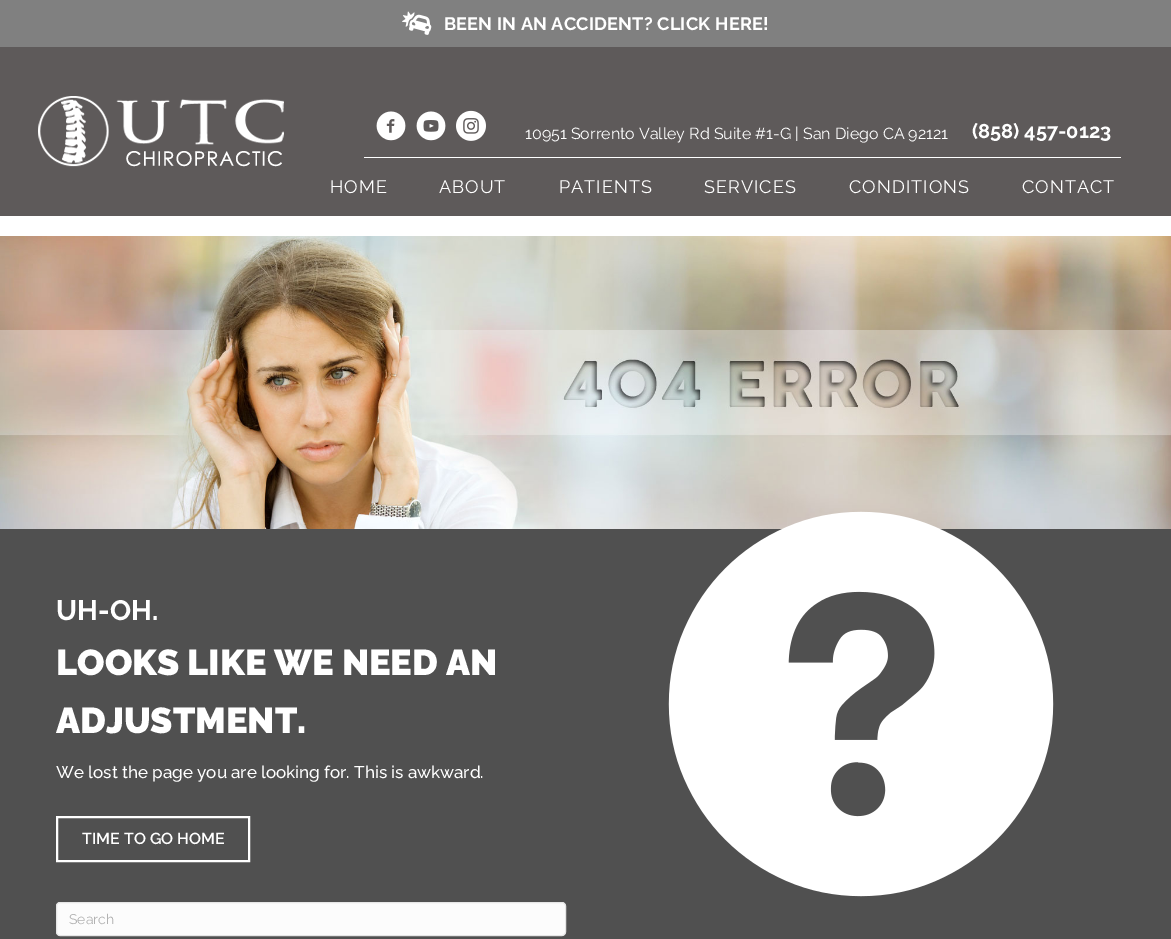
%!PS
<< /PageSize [1171 939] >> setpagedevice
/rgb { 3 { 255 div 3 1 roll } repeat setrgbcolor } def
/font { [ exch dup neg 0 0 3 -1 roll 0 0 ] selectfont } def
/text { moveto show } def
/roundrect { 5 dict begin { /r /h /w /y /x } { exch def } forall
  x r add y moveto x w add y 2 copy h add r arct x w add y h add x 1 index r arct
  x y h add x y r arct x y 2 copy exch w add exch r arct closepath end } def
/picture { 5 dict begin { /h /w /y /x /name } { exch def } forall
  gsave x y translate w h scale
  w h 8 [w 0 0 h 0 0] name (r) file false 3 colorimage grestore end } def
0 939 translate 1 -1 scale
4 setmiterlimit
255 255 255 rgb
0 0 1171 939 rectfill
128 128 128 rgb
0 0 1171 47 rectfill
(img_01.rgb) 402 11 30 24 picture
94 90 90 rgb
0 47 1171 169 rectfill
(img_02.rgb) 38 96 246 71 picture
(img_03.rgb) 376 111 30 30 picture
(img_04.rgb) 416 111 30 30 picture
(img_05.rgb) 456 110 30 31 picture
255 255 255 rgb
364 157 757 1 rectfill
(img_06.rgb) 0 236 1171 293 picture
80 80 80 rgb
0 529 1171 410 rectfill
255 255 255 rgb
2 setlinewidth
57 817 192 44 rectstroke
252 252 252 rgb
56.5 902.5 509 33 3.5 roundrect gsave fill grestore
230 230 230 rgb
1 setlinewidth
stroke
(img_07.rgb) 668 511 386 386 picture
/Raleway-Bold 18 font
255 255 255 rgb
444 30 moveto 0.2 0 (BEEN IN AN ACCIDENT? CLICK HERE!) ashow
/Raleway-Regular 16 font
(10951 Sorrento Valley Rd Suite #1-G | San Diego CA 92121) 525 139 text
/Raleway-Bold 20 font
(\(858\) 457-0123) 972 138 text
/Raleway-Regular 18 font
330 193 moveto 1 0 (HOME) ashow
439 193 moveto 1 0 (ABOUT) ashow
559 193 moveto 1 0 (PATIENTS) ashow
704 193 moveto 1 0 (SERVICES) ashow
849 193 moveto 1 0 (CONDITIONS) ashow
1022 193 moveto 1 0 (CONTACT) ashow
/Raleway-Bold 28 font
(UH-OH.) 56 620 text
/Raleway-Black 36 font
(LOOKS LIKE WE NEED AN) 56 675 text
(ADJUSTMENT.) 56 733 text
/Raleway-Medium 17 font
(We lost the page you are looking for. This is awkward.) 56 778 text
/Raleway-SemiBold 16 font
(TIME TO GO HOME) 82 844 text
/Raleway-Regular 14 font
178 178 178 rgb
(Search) 69 924 text
showpage
